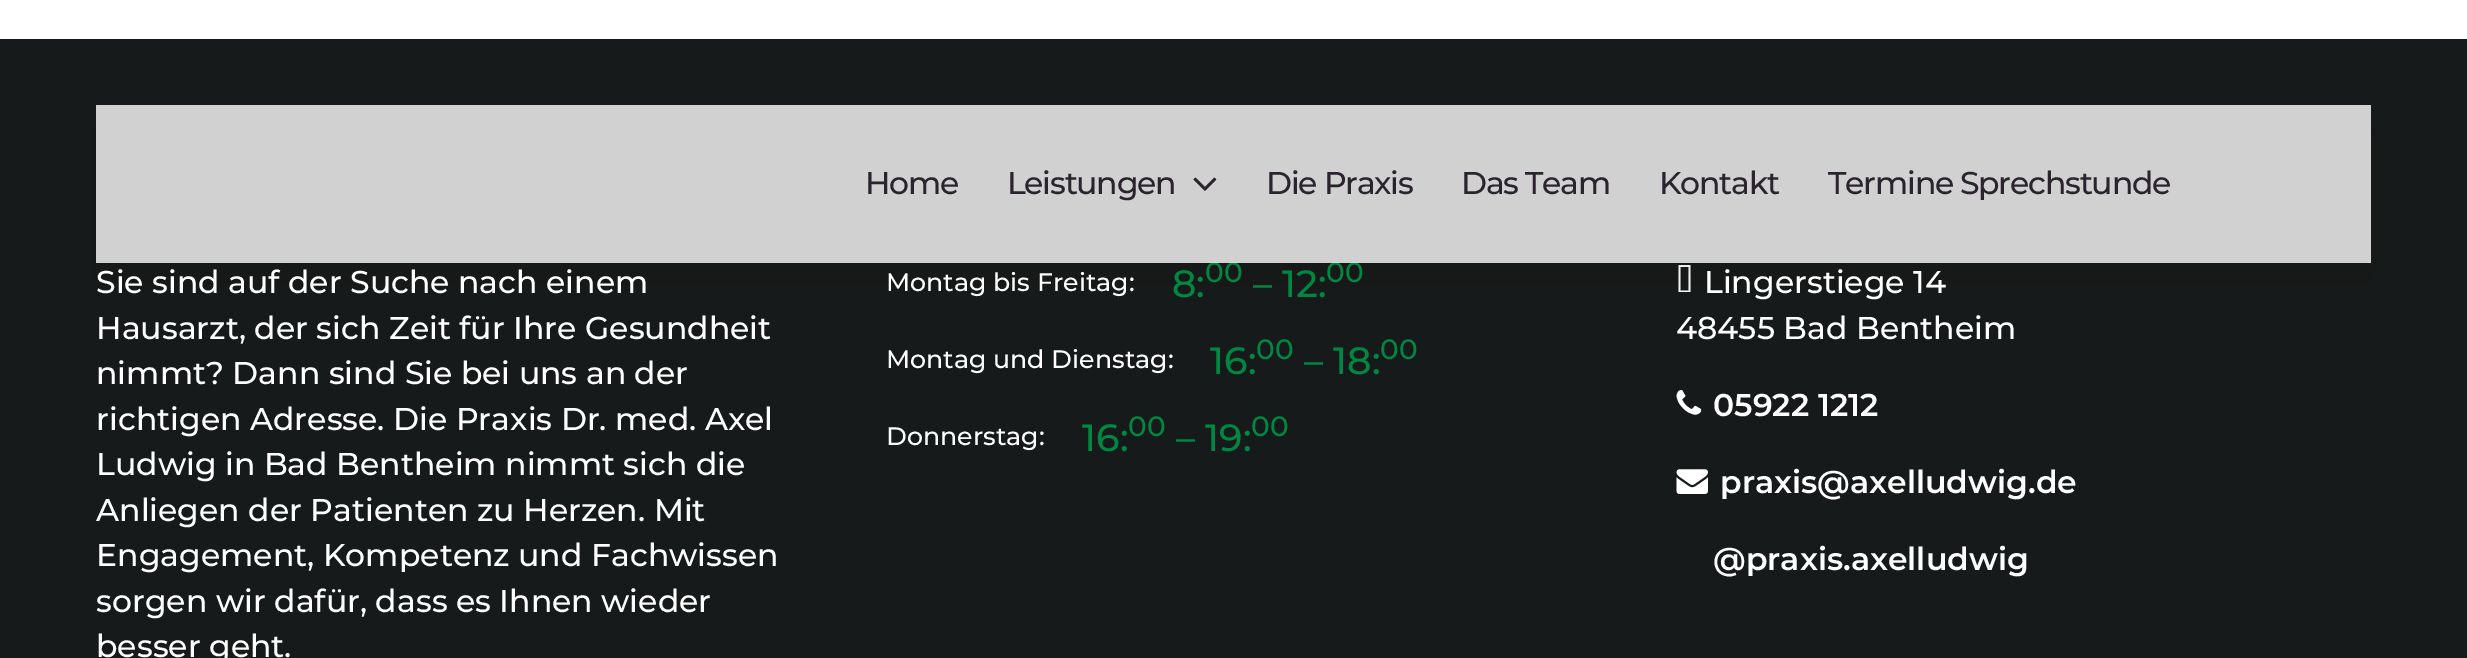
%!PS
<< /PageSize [2467 658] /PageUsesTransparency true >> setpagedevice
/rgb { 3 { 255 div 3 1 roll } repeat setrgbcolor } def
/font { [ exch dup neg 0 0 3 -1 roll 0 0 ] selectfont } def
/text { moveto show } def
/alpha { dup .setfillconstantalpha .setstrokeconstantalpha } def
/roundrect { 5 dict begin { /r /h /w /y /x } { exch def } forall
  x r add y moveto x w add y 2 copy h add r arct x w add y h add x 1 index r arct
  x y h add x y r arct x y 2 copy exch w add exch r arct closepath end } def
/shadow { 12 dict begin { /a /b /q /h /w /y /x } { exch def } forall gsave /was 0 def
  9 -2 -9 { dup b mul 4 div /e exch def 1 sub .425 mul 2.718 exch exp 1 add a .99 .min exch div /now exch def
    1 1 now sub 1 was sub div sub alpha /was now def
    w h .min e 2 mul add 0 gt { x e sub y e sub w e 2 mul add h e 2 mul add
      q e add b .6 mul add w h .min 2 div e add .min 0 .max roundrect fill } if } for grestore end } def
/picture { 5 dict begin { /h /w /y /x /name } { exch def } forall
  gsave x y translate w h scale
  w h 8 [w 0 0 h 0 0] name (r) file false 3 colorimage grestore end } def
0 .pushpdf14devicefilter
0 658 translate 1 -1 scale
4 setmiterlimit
255 255 255 rgb
0 0 2467 658 rectfill
23 26 26 rgb
0 39 2467 619 rectfill
255 255 255 rgb
1680.5 290.5 moveto 0 -23.5 rlineto 8 0 rlineto 0 23.5 rlineto closepath 1678.5 292 moveto 12 0 rlineto 0 -27 rlineto -12 0 rlineto closepath fill
gsave
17 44 moveto 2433 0 rlineto 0 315 rlineto -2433 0 rlineto closepath 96 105 moveto 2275 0 rlineto 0 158 rlineto -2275 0 rlineto closepath eoclip newpath
0 0 0 rgb
96 123 2275 157 0 26 0.1 shadow
grestore
(img_02.rgb) 1676 390 26 25 picture
(img_03.rgb) 1676 469 32 25 picture
/Montserrat-Medium 31.5 font
(Sie sind auf der Suche nach einem) 96 293 text
(Hausarzt, der sich Zeit für Ihre Gesundheit) 96 339 text
(nimmt? Dann sind Sie bei uns an der) 96 384 text
(richtigen Adresse. Die Praxis Dr. med. Axel) 96 430 text
(Ludwig in Bad Bentheim nimmt sich die) 96 475 text
(Anliegen der Patienten zu Herzen. Mit) 96 521 text
(Engagement, Kompetenz und Fachwissen) 96 566 text
(sorgen wir dafür, dass es Ihnen wieder) 96 612 text
(besser geht.) 96 657 text
/Montserrat-Medium 25.25 font
(Montag bis Freitag:) 886 291 text
/Montserrat-Medium 38 font
0 135 65 rgb
(8:) 1172 297 text
/Montserrat-Medium 28 font
(00) 1205 282 text
/Montserrat-Medium 38 font
(– 12:) 1253 297 text
/Montserrat-Medium 28 font
(00) 1326 282 text
0.8 alpha
255 255 255 rgb
96 105 2275 158 rectfill
/Montserrat-Medium 31.5 font
1 alpha
43 36 46 rgb
1828 194 moveto -1.25 0 (Termine Sprechstunde) ashow
1659 194 moveto -1.25 0 (Kontakt) ashow
1461 194 moveto -1.25 0 (Das Team) ashow
1266 194 moveto -1.25 0 (Die Praxis) ashow
1007 194 moveto -1.25 0 (Leistungen) ashow
(img_01.rgb) 1193 177 24 14 picture
865 194 moveto -1.25 0 (Home) ashow
/Montserrat-Medium 25.25 font
255 255 255 rgb
(Montag und Dienstag:) 886 368 text
/Montserrat-Medium 38 font
0 135 65 rgb
(16:) 1210 374 text
/Montserrat-Medium 28 font
(00) 1256 359 text
/Montserrat-Medium 38 font
(– 18:) 1304 374 text
/Montserrat-Medium 28 font
(00) 1380 359 text
/Montserrat-Medium 25.25 font
255 255 255 rgb
(Donnerstag:) 886 445 text
/Montserrat-Medium 38 font
0 135 65 rgb
(16:) 1082 451 text
/Montserrat-Medium 28 font
(00) 1128 436 text
/Montserrat-Medium 38 font
(– 19:) 1176 451 text
/Montserrat-Medium 28 font
(00) 1251 436 text
/Montserrat-Medium 31.5 font
255 255 255 rgb
(Lingerstiege 14) 1704 293 text
(48455 Bad Bentheim) 1676 339 text
/Montserrat-SemiBold 31.5 font
(05922 1212) 1713 416 text
(praxis@axelludwig.de) 1720 493 text
(@praxis.axelludwig) 1713 570 text
.poppdf14devicefilter showpage
